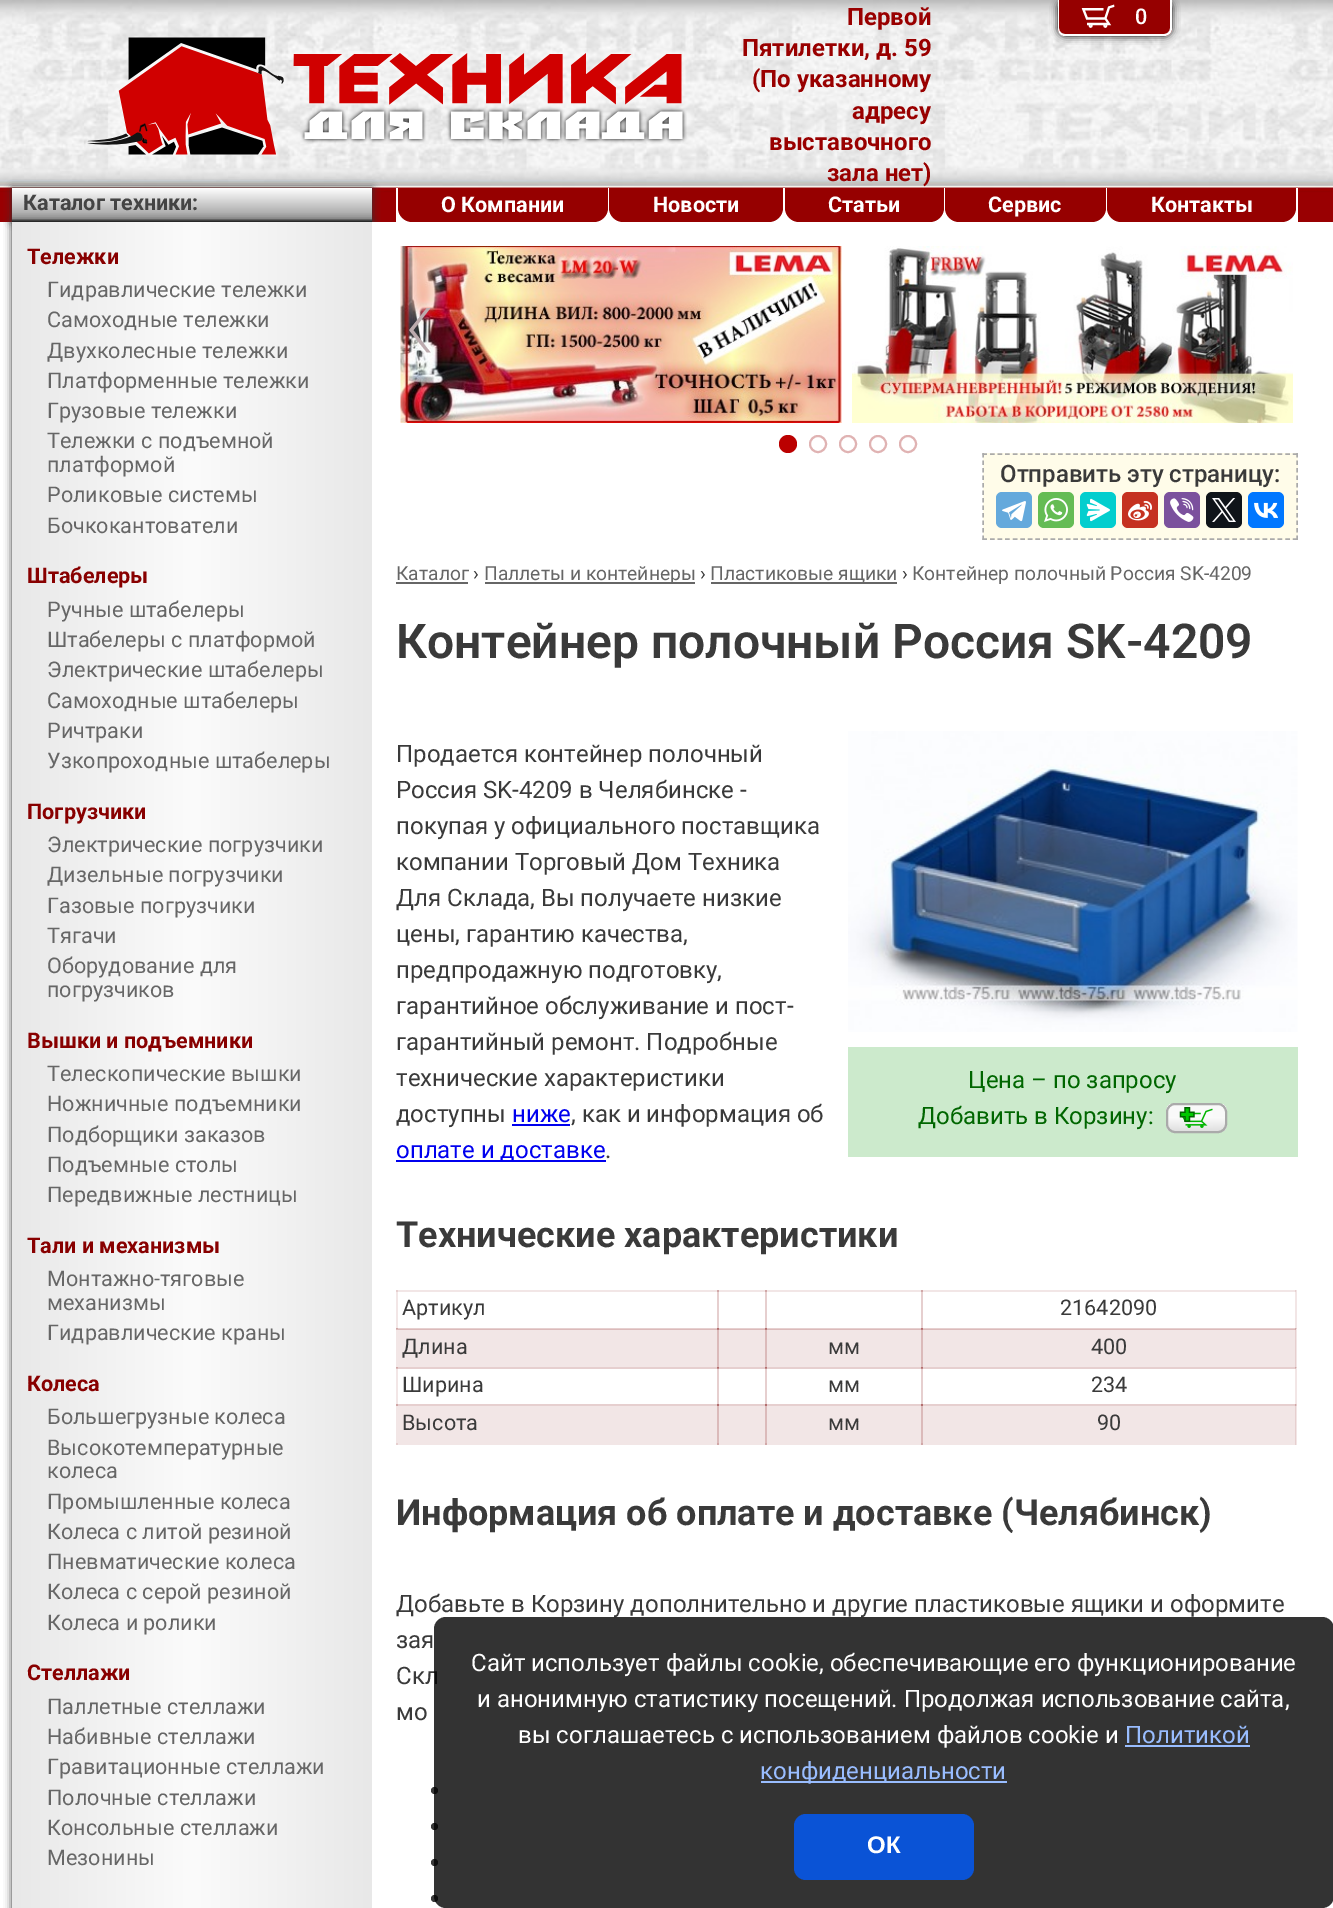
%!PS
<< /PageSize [1333 1908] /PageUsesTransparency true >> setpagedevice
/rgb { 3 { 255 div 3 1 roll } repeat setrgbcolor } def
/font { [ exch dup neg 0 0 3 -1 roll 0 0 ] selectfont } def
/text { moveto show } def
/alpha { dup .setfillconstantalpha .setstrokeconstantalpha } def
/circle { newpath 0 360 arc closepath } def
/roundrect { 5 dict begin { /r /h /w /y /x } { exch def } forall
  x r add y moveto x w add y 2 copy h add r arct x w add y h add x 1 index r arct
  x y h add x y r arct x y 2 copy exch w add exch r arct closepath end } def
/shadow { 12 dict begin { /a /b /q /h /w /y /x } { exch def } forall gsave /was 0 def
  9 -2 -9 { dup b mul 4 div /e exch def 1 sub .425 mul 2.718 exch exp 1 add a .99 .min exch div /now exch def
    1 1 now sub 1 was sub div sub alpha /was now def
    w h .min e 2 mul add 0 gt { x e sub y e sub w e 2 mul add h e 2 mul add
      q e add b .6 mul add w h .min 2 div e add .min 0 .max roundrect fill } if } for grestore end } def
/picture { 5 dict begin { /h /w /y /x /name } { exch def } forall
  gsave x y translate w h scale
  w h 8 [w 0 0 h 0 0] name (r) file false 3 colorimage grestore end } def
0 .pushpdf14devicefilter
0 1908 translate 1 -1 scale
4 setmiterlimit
255 255 255 rgb
0 0 1333 1908 rectfill
(img_01.rgb) 0 0 1333 222 picture
0 0 0 rgb
1058 0 114 36 8 4 1 shadow
150 0 0 rgb
1058 0 moveto 114 0 rlineto 0 28 rlineto 0 4.5 -3.5 8 -8 8 rcurveto -98 0 rlineto -4.5 0 -8 -3.5 -8 -8 rcurveto closepath fill
255 255 255 rgb
1058 0 moveto 114 0 rlineto 0 28 rlineto 0 5 -4 8 -8 8 rcurveto -99 0 rlineto -4 0 -7 -3 -7 -8 rcurveto closepath 1059 0 moveto 111 0 rlineto 0 28 rlineto 0 4 -3 6 -6 6 rcurveto -99 0 rlineto -3 0 -6 -2 -6 -6 rcurveto closepath eofill
(img_02.rgb) 1081 4 34 24 picture
(img_03.rgb) 87 36 600 120 picture
51 51 51 rgb
12 188 360 34 0 4 1 shadow
gsave 12 188 moveto 360 0 rlineto 0 34 rlineto -360 0 rlineto closepath clip newpath
<< /ShadingType 2 /ColorSpace /DeviceRGB /Coords [192 222 192 188] /Extend [true true] /Function << /FunctionType 3 /Domain [0 1] /Functions [<< /FunctionType 2 /Domain [0 1] /C0 [0.082 0.082 0.082] /C1 [0.082 0.082 0.082] /N 1 >> << /FunctionType 2 /Domain [0 1] /C0 [0.082 0.082 0.082] /C1 [0.612 0.612 0.612] /N 1 >> << /FunctionType 2 /Domain [0 1] /C0 [0.612 0.612 0.612] /C1 [1 1 1] /N 1 >>] /Bounds [0.01 0.1] /Encode [0 1 0 1 0 1] >> >> shfill grestore
12 222 360 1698 0 4 1 shadow
gsave 12 222 moveto 360 0 rlineto 0 1686 rlineto -360 0 rlineto closepath clip newpath
<< /ShadingType 2 /ColorSpace /DeviceRGB /Coords [372 1277 12 1277] /Extend [true true] /Function << /FunctionType 3 /Domain [0 1] /Functions [<< /FunctionType 2 /Domain [0 1] /C0 [0.91 0.91 0.91] /C1 [0.984 0.984 0.984] /N 1 >> << /FunctionType 2 /Domain [0 1] /C0 [0.984 0.984 0.984] /C1 [0.91 0.91 0.91] /N 1 >>] /Bounds [0.5] /Encode [0 1 0 1] >> >> shfill grestore
255 255 255 rgb
396 188 902 34 rectfill
150 0 0 rgb
398 188 moveto 210 0 rlineto 0 20 rlineto 0 7.5 -6.5 14 -14 14 rcurveto -182 0 rlineto -7.5 0 -14 -6.5 -14 -14 rcurveto closepath fill
609 188 moveto 174 0 rlineto 0 20 rlineto 0 7.5 -6.5 14 -14 14 rcurveto -146 0 rlineto -7.5 0 -14 -6.5 -14 -14 rcurveto closepath fill
785 188 moveto 159 0 rlineto 0 20 rlineto 0 7.5 -6.5 14 -14 14 rcurveto -131 0 rlineto -7.5 0 -14 -6.5 -14 -14 rcurveto closepath fill
945 188 moveto 161 0 rlineto 0 20 rlineto 0 7.5 -6.5 14 -14 14 rcurveto -133 0 rlineto -7.5 0 -14 -6.5 -14 -14 rcurveto closepath fill
1107 188 moveto 189 0 rlineto 0 20 rlineto 0 7.5 -6.5 14 -14 14 rcurveto -161 0 rlineto -7.5 0 -14 -6.5 -14 -14 rcurveto closepath fill
255 255 255 rgb
372 222 9 1686 rectfill
242 230 230 rgb
396 1290 2 155 rectfill
396 1290 323 2 rectfill
230 207 207 rgb
396 1290 2 2 rectfill
717 1290 2 39 rectfill
242 230 230 rgb
717 1290 50 2 rectfill
209 167 167 rgb
717 1290 2 2 rectfill
230 207 207 rgb
765 1290 2 39 rectfill
242 230 230 rgb
765 1290 158 2 rectfill
209 167 167 rgb
765 1290 2 2 rectfill
230 207 207 rgb
921 1290 2 39 rectfill
242 230 230 rgb
1295 1290 2 39 rectfill
230 207 207 rgb
396 1328 527 1 rectfill
219 186 186 rgb
396 1329 321 1 rectfill
209 167 167 rgb
396 1328 2 1 rectfill
179 110 110 rgb
717 1328 2 1 rectfill
765 1328 2 1 rectfill
242 230 230 rgb
1296 1328 1 40 rectfill
230 207 207 rgb
921 1328 376 1 rectfill
179 110 110 rgb
921 1328 2 1 rectfill
209 167 167 rgb
1295 1328 1 1 rectfill
230 207 207 rgb
396 1367 323 2 rectfill
219 186 186 rgb
396 1368 2 1 rectfill
209 167 167 rgb
396 1367 2 1 rectfill
230 207 207 rgb
717 1367 2 39 rectfill
717 1367 50 2 rectfill
192 135 135 rgb
717 1368 2 1 rectfill
179 110 110 rgb
717 1367 2 1 rectfill
230 207 207 rgb
765 1367 2 39 rectfill
765 1367 158 2 rectfill
192 135 135 rgb
765 1368 2 1 rectfill
179 110 110 rgb
765 1367 2 1 rectfill
230 207 207 rgb
921 1367 2 39 rectfill
242 230 230 rgb
1295 1367 2 39 rectfill
230 207 207 rgb
1295 1367 2 1 rectfill
242 230 230 rgb
396 1443 900 2 rectfill
230 207 207 rgb
396 1443 2 2 rectfill
396 1404 527 2 rectfill
209 167 167 rgb
396 1404 2 2 rectfill
242 230 230 rgb
1296 1404 1 41 rectfill
230 207 207 rgb
921 1404 376 2 rectfill
1295 1406 1 39 rectfill
(img_04.rgb) 400 246 442 177 picture
(img_05.rgb) 852 246 441 177 picture
187 0 0 rgb
788 444 9 circle fill
224 179 179 rgb
2 setlinewidth
818 444 8 circle stroke
848 444 8 circle stroke
878 444 8 circle stroke
908 444 8 circle stroke
255 252 233 rgb
983 453 315 87 rectfill
170 170 170 rgb
1.5 setlinewidth
[4.5 3.07] 0 setdash
982.5 454 moveto 315 0 rlineto stroke
[4.5 3] 0 setdash
1297 453 moveto 0 87 rlineto stroke
[4.5 3.07] 0 setdash
982.5 539 moveto 315 0 rlineto stroke
[4.5 3] 0 setdash
983 453 moveto 0 87 rlineto stroke
100 169 220 rgb
996 492 36 36 6 roundrect fill
(img_06.rgb) 1002 501 24 21 picture
101 188 84 rgb
1038 492 36 36 6 roundrect fill
(img_07.rgb) 1044 498 24 24 picture
3 206 206 rgb
1080 492 36 36 6 roundrect fill
(img_08.rgb) 1086 498 24 24 picture
197 50 32 rgb
1122 492 36 36 6 roundrect fill
(img_09.rgb) 1128 501 24 20 picture
123 81 157 rgb
1164 492 36 36 6 roundrect fill
(img_10.rgb) 1170 498 24 24 picture
15 20 25 rgb
1206 492 36 36 6 roundrect fill
(img_11.rgb) 1212 498 24 24 picture
0 119 255 rgb
1248 492 36 36 6 roundrect fill
(img_12.rgb) 1254 502 24 16 picture
102 102 102 rgb
396 582 72 2 rectfill
485 582 210 2 rectfill
711 582 186 2 rectfill
0 0 238 rgb
512 1124 58 2 rectfill
396 1160 210 2 rectfill
(img_13.rgb) 848 731 450 301 picture
204 234 204 rgb
848 1047 450 110 rectfill
gsave
1166 1103 61 30 9 roundrect clip newpath
gsave 1166 1104 moveto 61 0 rlineto 0 27 rlineto -61 0 rlineto closepath clip newpath
<< /ShadingType 2 /ColorSpace /DeviceRGB /Coords [1196 1131 1196 1104] /Extend [true true] /Function << /FunctionType 3 /Domain [0 1] /Functions [<< /FunctionType 2 /Domain [0 1] /C0 [0.878 0.878 0.878] /C1 [0.98 0.98 0.98] /N 1 >> << /FunctionType 2 /Domain [0 1] /C0 [0.98 0.98 0.98] /C1 [0.976 0.976 0.976] /N 1 >>] /Bounds [0.5] /Encode [0 1 0 1] >> >> shfill grestore
grestore
170 170 170 rgb
2 setlinewidth
[] 0 setdash
1167 1104 59 28 8 roundrect stroke
(img_14.rgb) 1179 1107 34 21 picture
242 230 230 rgb
921 1290 375 2 rectfill
209 167 167 rgb
921 1290 2 2 rectfill
230 207 207 rgb
1295 1290 1 2 rectfill
242 230 230 rgb
398 1330 319 37 rectfill
719 1330 46 37 rectfill
219 186 186 rgb
717 1329 2 38 rectfill
717 1329 206 1 rectfill
185 122 122 rgb
717 1329 2 1 rectfill
219 186 186 rgb
765 1329 2 38 rectfill
185 122 122 rgb
765 1329 2 1 rectfill
242 230 230 rgb
923 1330 372 37 rectfill
230 207 207 rgb
1295 1329 1 38 rectfill
219 186 186 rgb
923 1329 373 1 rectfill
209 167 167 rgb
1295 1329 1 1 rectfill
242 230 230 rgb
767 1330 154 37 rectfill
219 186 186 rgb
921 1329 2 38 rectfill
185 122 122 rgb
921 1329 2 1 rectfill
230 207 207 rgb
921 1367 375 2 rectfill
192 135 135 rgb
921 1368 2 1 rectfill
179 110 110 rgb
921 1367 2 1 rectfill
219 186 186 rgb
1295 1367 1 2 rectfill
209 167 167 rgb
1295 1367 1 1 rectfill
242 230 230 rgb
398 1406 319 37 rectfill
719 1406 46 37 rectfill
219 186 186 rgb
717 1404 2 41 rectfill
209 167 167 rgb
717 1443 2 2 rectfill
179 110 110 rgb
717 1404 2 2 rectfill
242 230 230 rgb
767 1406 154 37 rectfill
219 186 186 rgb
765 1404 2 41 rectfill
209 167 167 rgb
765 1443 2 2 rectfill
179 110 110 rgb
765 1404 2 2 rectfill
242 230 230 rgb
923 1406 372 37 rectfill
209 167 167 rgb
1295 1404 1 2 rectfill
219 186 186 rgb
921 1404 2 41 rectfill
209 167 167 rgb
921 1443 2 2 rectfill
179 110 110 rgb
921 1404 2 2 rectfill
58 58 58 rgb
434.5 1790.5 3.5 circle fill
434.5 1826.5 3.5 circle fill
434.5 1862.5 3.5 circle fill
434.5 1898.5 3.5 circle fill
/Roboto-Bold 24 font
153 0 0 rgb
(Первой) 847 25 text
(Пятилетки, д. 59) 742 56 text
(\(По указанному) 752 87 text
(адресу) 852 119 text
(выставочного) 769 150 text
(зала нет\)) 827 181 text
/Roboto-Medium 21.6 font
255 255 255 rgb
(0) 1135 24 text
/Roboto-Bold 21.6 font
68 68 68 rgb
(Каталог техники:) 23 210 text
136 0 0 rgb
(Тележки) 27 264 text
/Roboto-Regular 21.6 font
102 102 102 rgb
(Гидравлические тележки) 47 297 text
(Самоходные тележки) 47 327 text
(Двухколесные тележки) 47 358 text
(Платформенные тележки) 47 388 text
(Грузовые тележки) 47 418 text
(Тележки с подъемной) 47 448 text
(платформой) 47 472 text
(Роликовые системы) 47 502 text
(Бочкокантователи) 47 533 text
/Roboto-Bold 21.6 font
136 0 0 rgb
(Штабелеры) 27 583 text
/Roboto-Regular 21.6 font
102 102 102 rgb
(Ручные штабелеры) 47 617 text
(Штабелеры с платформой) 47 647 text
(Электрические штабелеры) 47 677 text
(Самоходные штабелеры) 47 708 text
(Ричтраки) 47 738 text
(Узкопроходные штабелеры) 47 768 text
/Roboto-Bold 21.6 font
136 0 0 rgb
(Погрузчики) 27 819 text
/Roboto-Regular 21.6 font
102 102 102 rgb
(Электрические погрузчики) 47 852 text
(Дизельные погрузчики) 47 882 text
(Газовые погрузчики) 47 913 text
(Тягачи) 47 943 text
(Оборудование для) 47 973 text
(погрузчиков) 47 997 text
/Roboto-Bold 21.6 font
136 0 0 rgb
(Вышки и подъемники) 27 1048 text
/Roboto-Regular 21.6 font
102 102 102 rgb
(Телескопические вышки) 47 1081 text
(Ножничные подъемники) 47 1111 text
(Подборщики заказов) 47 1142 text
(Подъемные столы) 47 1172 text
(Передвижные лестницы) 47 1202 text
/Roboto-Bold 21.6 font
136 0 0 rgb
(Тали и механизмы) 27 1253 text
/Roboto-Regular 21.6 font
102 102 102 rgb
(Монтажно-тяговые) 47 1286 text
(механизмы) 47 1310 text
(Гидравлические краны) 47 1340 text
/Roboto-Bold 21.6 font
136 0 0 rgb
(Колеса) 27 1391 text
/Roboto-Regular 21.6 font
102 102 102 rgb
(Большегрузные колеса) 47 1424 text
(Высокотемпературные) 47 1455 text
(колеса) 47 1478 text
(Промышленные колеса) 47 1509 text
(Колеса с литой резиной) 47 1539 text
(Пневматические колеса) 47 1569 text
(Колеса с серой резиной) 47 1599 text
(Колеса и ролики) 47 1630 text
/Roboto-Bold 21.6 font
136 0 0 rgb
(Стеллажи) 27 1680 text
/Roboto-Regular 21.6 font
102 102 102 rgb
(Паллетные стеллажи) 47 1714 text
(Набивные стеллажи) 47 1744 text
(Гравитационные стеллажи) 47 1774 text
(Полочные стеллажи) 47 1805 text
(Консольные стеллажи) 47 1835 text
(Мезонины) 47 1865 text
/Roboto-Bold 21.6 font
255 255 255 rgb
(О Компании) 441 212 text
(Новости) 653 212 text
(Статьи) 828 212 text
(Сервис) 988 212 text
(Контакты) 1151 212 text
/Roboto-Thin 120 font
188 171 174 rgb
(‹) 403 363 text
/Roboto-Medium 24 font
58 58 58 rgb
(Отправить эту страницу:) 1000 482 text
/Roboto-Regular 19.25 font
102 102 102 rgb
(Каталог) 396 580 text
58 58 58 rgb
(›) 473 580 text
102 102 102 rgb
(Паллеты и контейнеры) 484 580 text
58 58 58 rgb
(›) 700 580 text
102 102 102 rgb
(Пластиковые ящики) 710 580 text
58 58 58 rgb
(›) 902 580 text
102 102 102 rgb
(Контейнер полочный Россия SK-4209) 912 580 text
/Roboto-SemiBold 48 font
58 58 58 rgb
(Контейнер полочный Россия SK-4209) 396 658 text
/Roboto-Regular 24 font
(Продается контейнер полочный) 396 762 text
(Россия SK-4209 в Челябинске -) 396 798 text
(покупая у официального поставщика) 396 834 text
(компании Торговый Дом Техника) 396 870 text
(Для Склада, Вы получаете низкие) 396 906 text
(цены, гарантию качества,) 396 942 text
(предпродажную подготовку,) 396 978 text
(гарантийное обслуживание и пост-) 396 1014 text
(гарантийный ремонт. Подробные) 396 1050 text
(технические характеристики) 396 1086 text
(доступны) 396 1122 text
0 0 238 rgb
(ниже) 512 1122 text
58 58 58 rgb
(, как и информация об) 571 1122 text
0 0 238 rgb
(оплате и доставке) 396 1158 text
58 58 58 rgb
(.) 605 1158 text
0 102 0 rgb
(Цена – по запросу) 968 1088 text
(Добавить в Корзину:) 918 1124 text
/Roboto-Bold 36 font
58 58 58 rgb
(Технические характеристики) 396 1247 text
/Roboto-Regular 21.6 font
(Артикул) 402 1315 text
(21642090) 1060 1315 text
(Длина) 402 1354 text
(400) 1091 1354 text
(мм) 828 1354 text
(Ширина) 402 1392 text
(мм) 828 1392 text
(234) 1091 1392 text
(Высота) 402 1430 text
(мм) 828 1430 text
(90) 1097 1430 text
/Roboto-Bold 36 font
(Информация об оплате и доставке \(Челябинск\)) 396 1525 text
/Roboto-Regular 24 font
(Добавьте в Корзину дополнительно и другие пластиковые ящики и оформите) 396 1612 text
(зая) 396 1648 text
(Скл) 396 1684 text
(мо) 396 1720 text
0.8 alpha
0 0 0 rgb
434 1617 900 291 12 roundrect fill
1 alpha
255 255 255 rgb
(Сайт использует файлы cookie, обеспечивающие его функционирование) 471 1671 text
(и анонимную статистику посещений. Продолжая использование сайта,) 477 1707 text
(вы соглашаетесь с использованием файлов cookie и) 518 1743 text
153 189 255 rgb
(Политикой) 1125 1743 text
1125 1745 125 2 rectfill
761 1781 246 2 rectfill
(конфиденциальности) 760 1779 text
0.8 alpha
0 91 255 rgb
794 1814 180 66 12 roundrect fill
/LiberationSans-Bold 24 font
1 alpha
255 255 255 rgb
(ОК) 867 1853 text
.poppdf14devicefilter showpage
